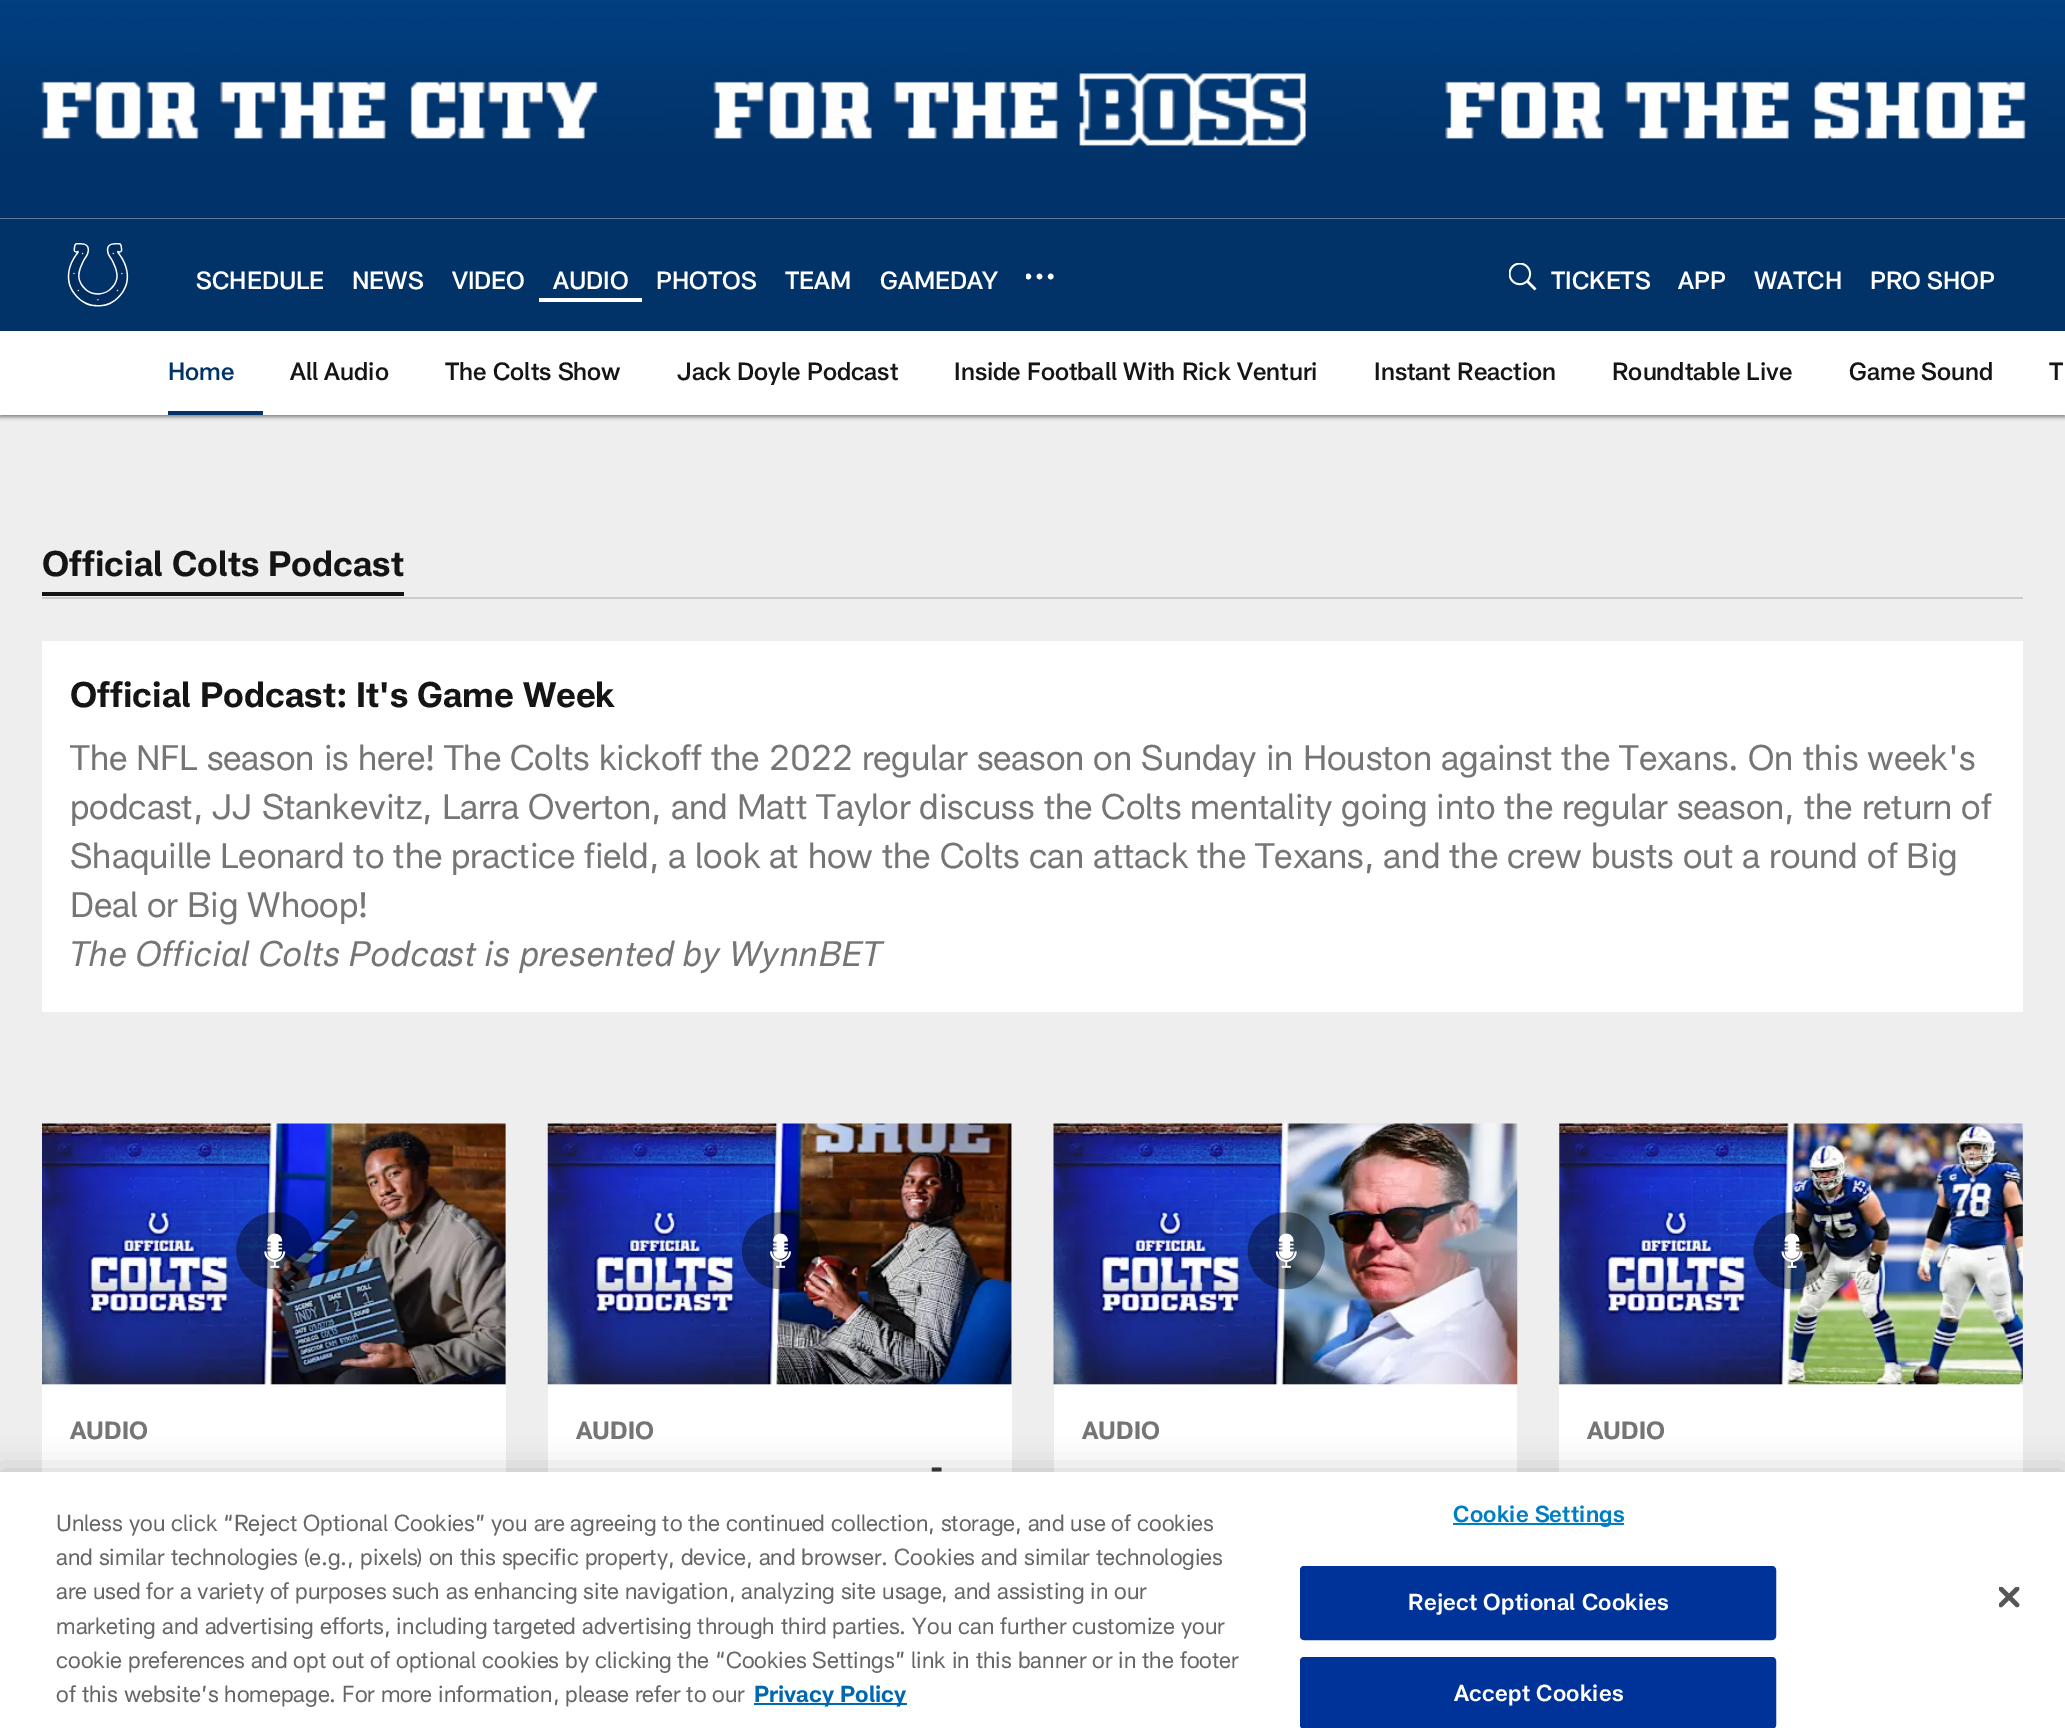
%!PS
<< /PageSize [2065 1728] /PageUsesTransparency true >> setpagedevice
/rgb { 3 { 255 div 3 1 roll } repeat setrgbcolor } def
/font { [ exch dup neg 0 0 3 -1 roll 0 0 ] selectfont } def
/text { moveto show } def
/alpha { dup .setfillconstantalpha .setstrokeconstantalpha } def
/circle { newpath 0 360 arc closepath } def
/roundrect { 5 dict begin { /r /h /w /y /x } { exch def } forall
  x r add y moveto x w add y 2 copy h add r arct x w add y h add x 1 index r arct
  x y h add x y r arct x y 2 copy exch w add exch r arct closepath end } def
/shadow { 12 dict begin { /a /b /q /h /w /y /x } { exch def } forall gsave /was 0 def
  9 -2 -9 { dup b mul 4 div /e exch def 1 sub .425 mul 2.718 exch exp 1 add a .99 .min exch div /now exch def
    1 1 now sub 1 was sub div sub alpha /was now def
    w h .min e 2 mul add 0 gt { x e sub y e sub w e 2 mul add h e 2 mul add
      q e add b .6 mul add w h .min 2 div e add .min 0 .max roundrect fill } if } for grestore end } def
/picture { 5 dict begin { /h /w /y /x /name } { exch def } forall
  gsave x y translate w h scale
  w h 8 [w 0 0 h 0 0] name (r) file false 3 colorimage grestore end } def
0 .pushpdf14devicefilter
0 1728 translate 1 -1 scale
4 setmiterlimit
238 238 238 rgb
0 0 2065 1728 rectfill
(img_01.rgb) 0 0 2065 219 picture
0 0 0 rgb
0 221 2065 112 0 2 0.47 shadow
1 51 105 rgb
0 219 2065 112 rectfill
(img_02.rgb) 67 243 62 64 picture
255 255 255 rgb
539 298 103 4 rectfill
1050.7 276.5 2.8 circle fill
1039.5 276.5 2.8 circle fill
gsave
1026 263 28 28 rectclip
1028.3 276.5 2.8 circle fill
grestore
(img_03.rgb) 1509 263 28 28 picture
0 0 0 rgb
0 333 2065 84 0 2 0.47 shadow
255 255 255 rgb
0 331 2065 84 rectfill
1 51 105 rgb
168 411 95 4 rectfill
204 204 204 rgb
42 597 1981 2 rectfill
21 21 21 rgb
42 592 362 4 rectfill
255 255 255 rgb
42 641 1981 371 rectfill
42 1124 464 348 rectfill
(img_04.rgb) 42 1123 464 262 picture
(img_05.rgb) 236 1212 78 78 picture
548 1124 464 348 rectfill
(img_06.rgb) 547 1123 465 262 picture
(img_07.rgb) 742 1212 77 78 picture
1054 1384 463 88 rectfill
(img_08.rgb) 1053 1123 465 262 picture
(img_09.rgb) 1247 1212 78 78 picture
1559 1124 464 348 rectfill
(img_10.rgb) 1559 1123 464 262 picture
(img_11.rgb) 1753 1212 78 78 picture
0 0 0 rgb
0 1472 2065 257 0 16 0.2 shadow
255 255 255 rgb
0 1472 2065 256 rectfill
0 103 177 rgb
754 1703 153 2 rectfill
0 125 195 rgb
1453 1523 171 2 rectfill
0 51 153 rgb
1301 1567 474 72 3 roundrect gsave fill grestore
2 setlinewidth
stroke
1301 1658 474 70 3 roundrect gsave fill grestore
stroke
(img_12.rgb) 1999 1587 21 21 picture
/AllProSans-Medium 24.5 font
255 255 255 rgb
(SCHEDULE) 196 289 text
(NEWS) 352 289 text
(VIDEO) 452 289 text
(AUDIO) 553 289 text
(PHOTOS) 656 289 text
(TEAM) 785 289 text
(GAMEDAY) 880 289 text
(TICKETS) 1551 289 text
(APP) 1678 289 text
(WATCH) 1754 289 text
(PRO SHOP) 1870 289 text
1 51 105 rgb
(Home) 168 380 text
21 21 21 rgb
(All Audio) 290 380 text
(The Colts Show) 445 380 text
(Jack Doyle Podcast) 677 380 text
(Inside Football With Rick Venturi) 954 380 text
(Instant Reaction) 1374 380 text
(Roundtable Live) 1612 380 text
(Game Sound) 1849 380 text
(T) 2049 380 text
/AllProSans-Bold 35 font
(Official Colts Podcast) 42 576 text
(Official Podcast: It's Game Week) 70 707 text
/AllProSans-Regular 35 font
117 117 117 rgb
(The NFL season is here! The Colts kickoff the 2022 regular season on Sunday in Houston against the Texans. On this week's) 70 770 text
(podcast, JJ Stankevitz, Larra Overton, and Matt Taylor discuss the Colts mentality going into the regular season, the return of) 70 819 text
(Shaquille Leonard to the practice field, a look at how the Colts can attack the Texans, and the crew busts out a round of Big) 70 868 text
(Deal or Big Whoop!) 70 917 text
/AllProSans-Italic 35 font
(The Official Colts Podcast is presented by WynnBET) 70 966 text
/AllProSans-Bold 24.5 font
(AUDIO) 70 1439 text
(AUDIO) 576 1439 text
/AllProSans-Bold 35 font
51 51 51 rgb
(-) 930 1480 text
/AllProSans-Bold 24.5 font
117 117 117 rgb
(AUDIO) 1082 1439 text
(AUDIO) 1587 1439 text
/AllProSans-Regular 22.75 font
102 102 102 rgb
(Unless you click “Reject Optional Cookies” you are agreeing to the continued collection, storage, and use of cookies) 56 1531 text
(and similar technologies \(e.g., pixels\) on this specific property, device, and browser. Cookies and similar technologies) 56 1565 text
(are used for a variety of purposes such as enhancing site navigation, analyzing site usage, and assisting in our) 56 1599 text
(marketing and advertising efforts, including targeted advertising through third parties. You can further customize your) 56 1634 text
(cookie preferences and opt out of optional cookies by clicking the “Cookies Settings” link in this banner or in the footer) 56 1668 text
(of this website’s homepage. For more information, please refer to our) 56 1702 text
/AllProSans-Bold 22.75 font
0 103 177 rgb
(Privacy Policy) 754 1702 text
/AllProSans-SemiBold 22.75 font
0 125 195 rgb
1453 1522 moveto 0.25 0 (Cookie Settings) ashow
255 255 255 rgb
1408 1610 moveto 0.25 0 (Reject Optional Cookies) ashow
1454 1701 moveto 0.25 0 (Accept Cookies) ashow
.poppdf14devicefilter showpage
